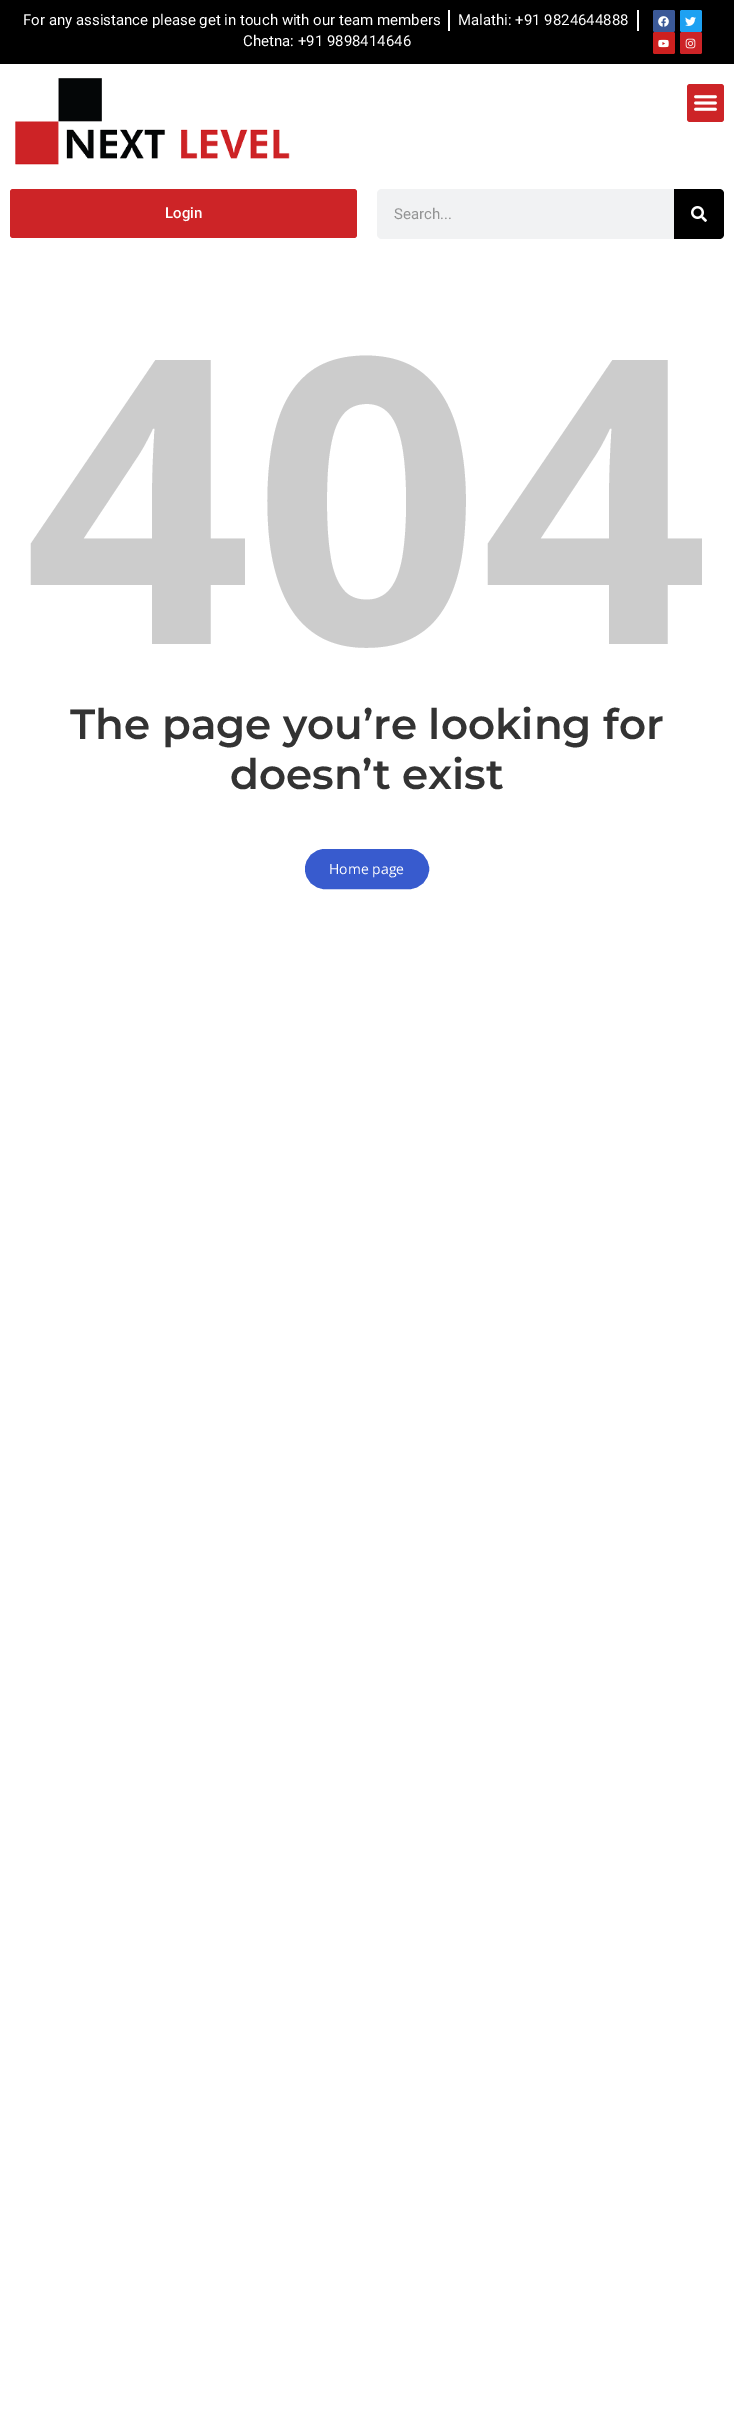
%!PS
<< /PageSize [734 2431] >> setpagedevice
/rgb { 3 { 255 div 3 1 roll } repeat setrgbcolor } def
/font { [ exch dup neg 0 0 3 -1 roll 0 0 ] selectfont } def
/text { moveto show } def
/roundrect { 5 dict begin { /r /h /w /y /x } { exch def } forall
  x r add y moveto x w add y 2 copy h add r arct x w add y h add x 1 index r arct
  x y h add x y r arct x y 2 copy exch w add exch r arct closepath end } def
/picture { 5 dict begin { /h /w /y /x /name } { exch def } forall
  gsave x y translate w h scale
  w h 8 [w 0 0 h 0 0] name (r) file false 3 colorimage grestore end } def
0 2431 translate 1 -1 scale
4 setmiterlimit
255 255 255 rgb
0 0 734 2431 rectfill
0 0 0 rgb
0 0 734 64 rectfill
255 255 255 rgb
448 10 2 21 rectfill
637 10 2 21 rectfill
59 89 152 rgb
653 10 22 22 2 roundrect fill
(img_01.rgb) 658 16 11 11 picture
29 161 242 rgb
680 10 22 22 2 roundrect fill
(img_02.rgb) 685 17 11 9 picture
205 32 31 rgb
653 32 22 22 2 roundrect fill
(img_03.rgb) 658 39 11 9 picture
205 36 39 rgb
680 32 22 22 2 roundrect fill
(img_04.rgb) 685 38 11 11 picture
(img_05.rgb) 15 78 275 87 picture
687 84 37 38 3 roundrect fill
(img_06.rgb) 694 95 23 16 picture
10 189 347 49 3 roundrect fill
241 242 243 rgb
377 189 347 50 5 roundrect fill
0 0 0 rgb
674 189 moveto 45 0 rlineto 3 0 5 2 5 5 rcurveto 0 40 rlineto 0 3 -2 5 -5 5 rcurveto -45 0 rlineto closepath fill
(img_07.rgb) 691 206 16 16 picture
56 91 206 rgb
306 850 122 38 19 roundrect gsave fill grestore
2 setlinewidth
stroke
/Roboto-Regular 15 font
255 255 255 rgb
(For any assistance please get in touch with our team members) 23 25 text
(Malathi: +91 9824644888) 458 25 text
(Chetna: +91 9898414646) 243 46 text
/Roboto-Medium 15 font
(Login) 165 218 text
/Roboto-Regular 15 font
147 148 148 rgb
(Search...) 394 219 text
/OpenSans-Bold 400 font
204 204 204 rgb
(404) 24 644 text
/Montserrat-SemiBold 42 font
51 51 51 rgb
(The page you’re looking for) 70 739 text
(doesn’t exist) 230 789 text
/OpenSans-Regular 14 font
255 255 255 rgb
(Home page) 329 874 text
showpage
